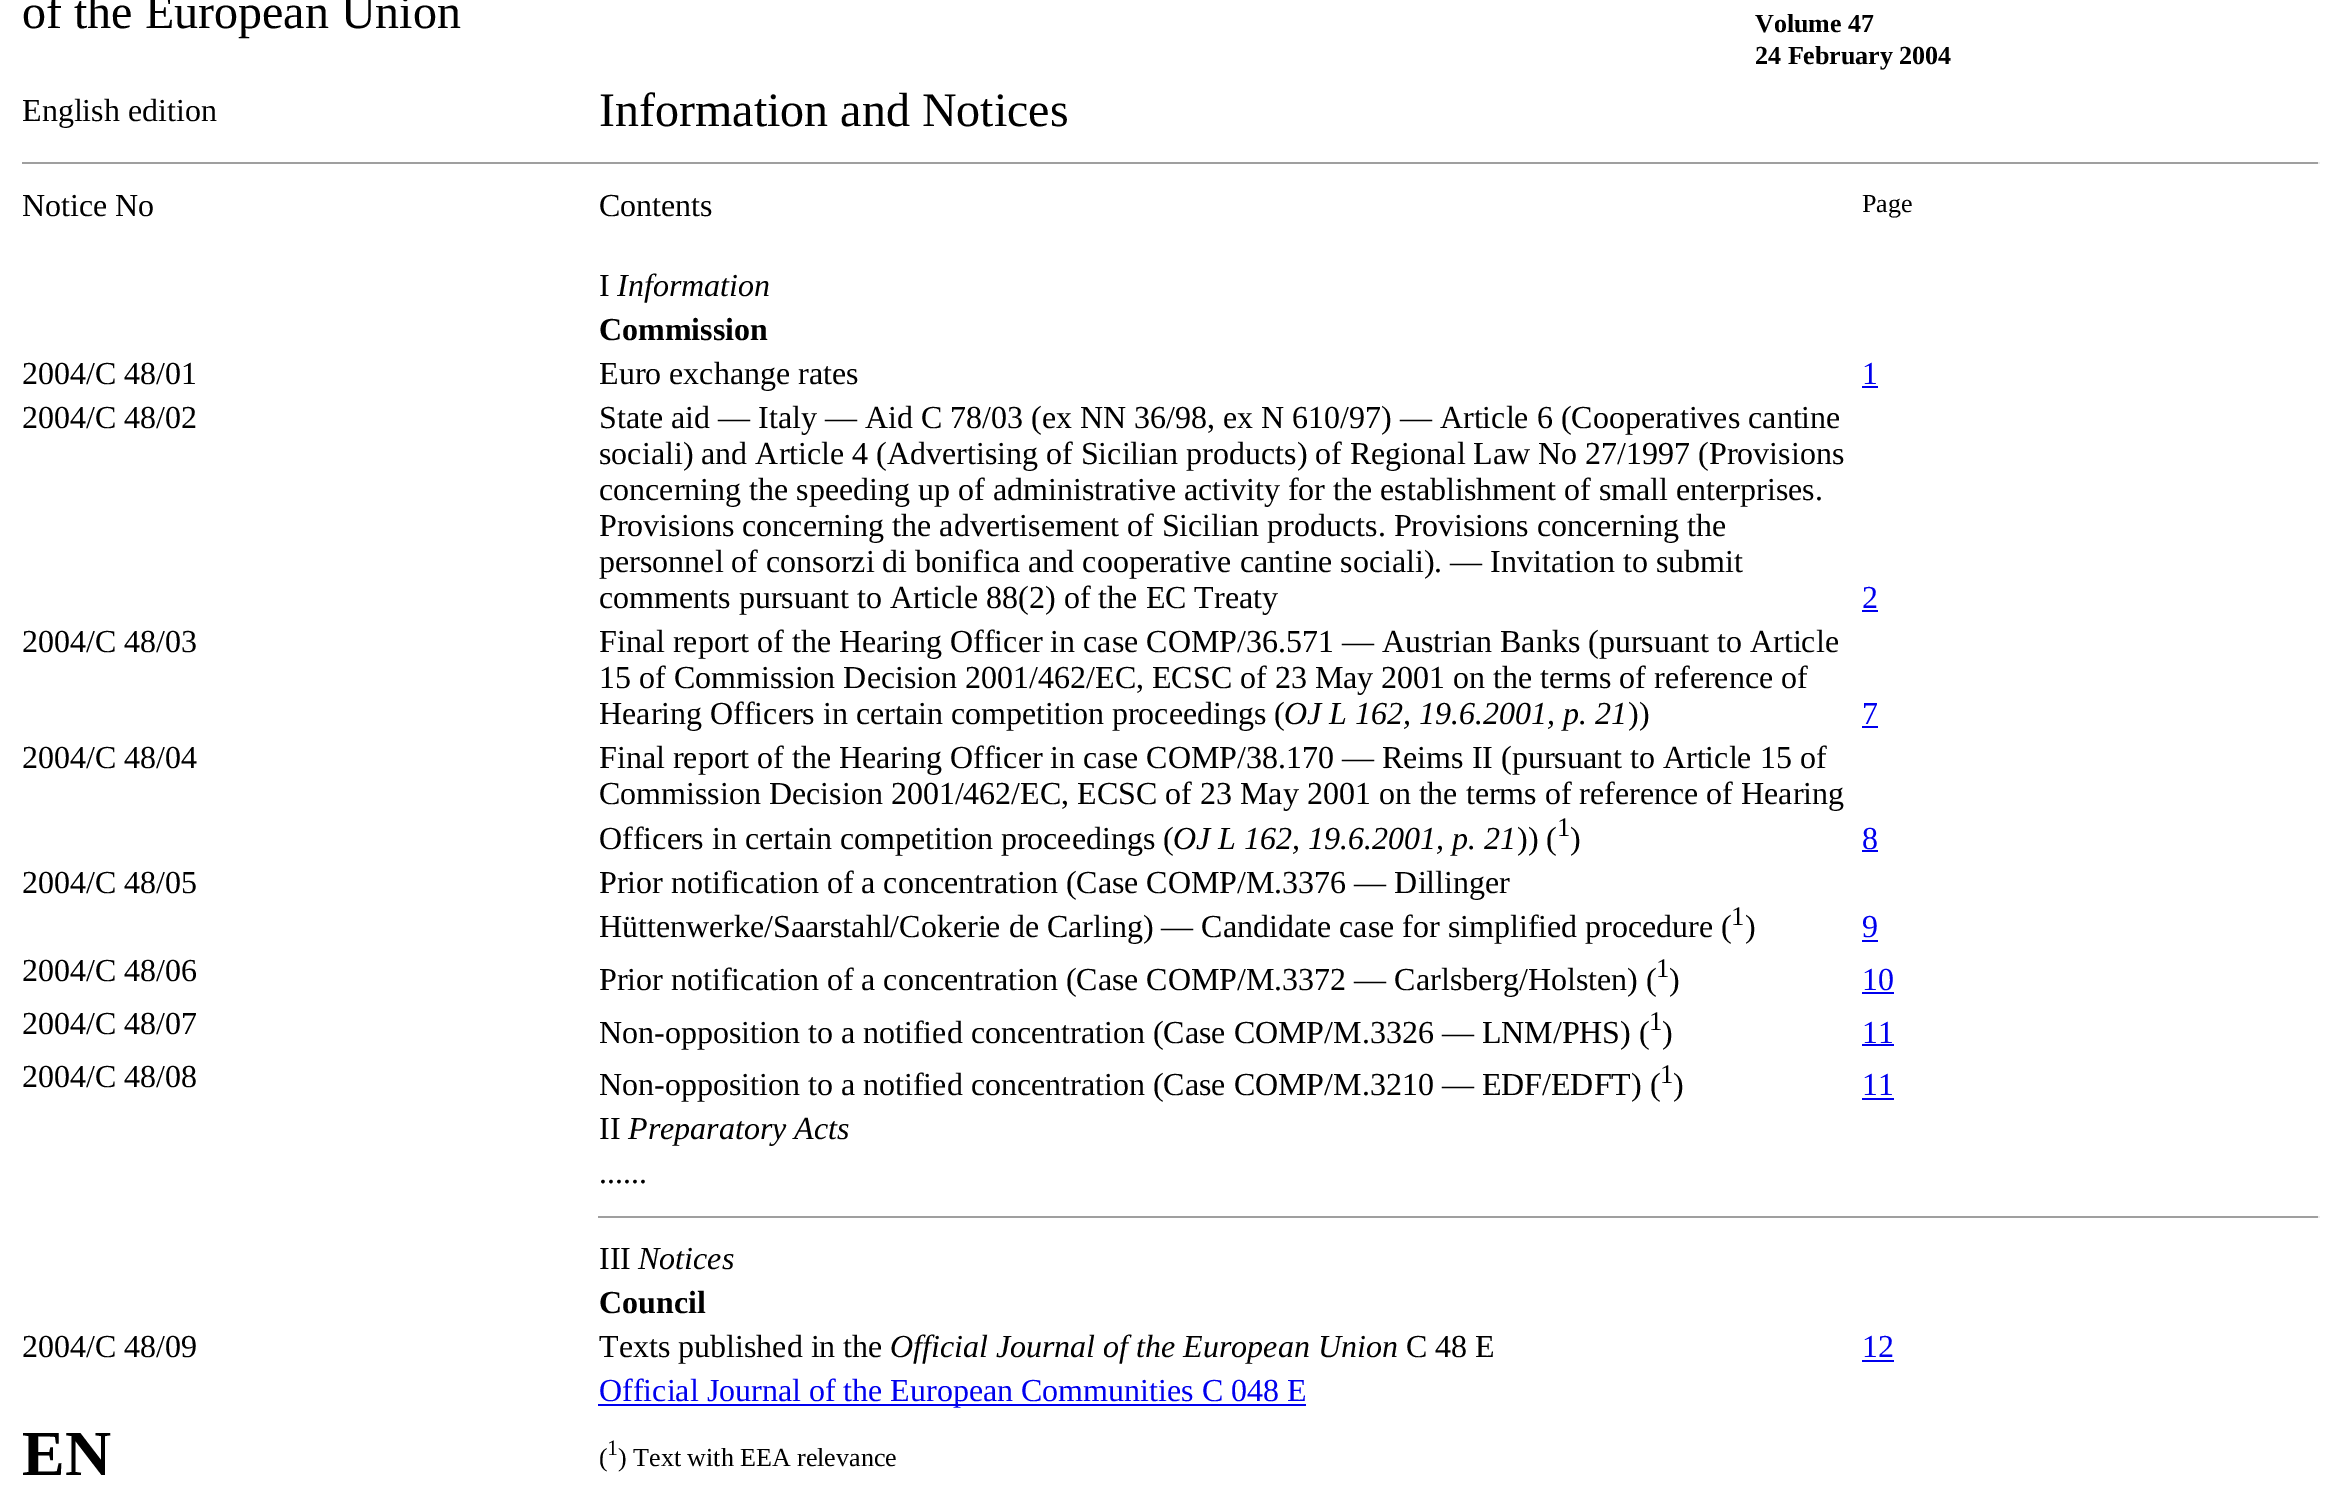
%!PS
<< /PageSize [2341 1505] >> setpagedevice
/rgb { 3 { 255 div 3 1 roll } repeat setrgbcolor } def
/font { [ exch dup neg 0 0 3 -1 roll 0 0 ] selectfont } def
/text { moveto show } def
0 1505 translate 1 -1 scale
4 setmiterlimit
255 255 255 rgb
0 0 2341 1505 rectfill
159 159 159 rgb
22 162 2298 2 rectfill
238 238 238 rgb
2318 162 2 2 rectfill
0 0 238 rgb
1862 386 16 2 rectfill
1862 610 16 2 rectfill
1862 726 16 2 rectfill
1862 850 16 2 rectfill
1862 940 16 2 rectfill
1862 992 32 2 rectfill
1862 1044 32 2 rectfill
1862 1098 32 2 rectfill
159 159 159 rgb
598 1216 1722 2 rectfill
238 238 238 rgb
2318 1216 2 2 rectfill
0 0 238 rgb
1862 1360 32 2 rectfill
598 1404 708 2 rectfill
/LiberationSerif-Regular 48 font
0 0 0 rgb
(of the European Union) 22 28 text
/LiberationSerif-Bold 26 font
(Volume 47) 1755 32 text
(24 February 2004) 1755 64 text
/LiberationSerif-Regular 32 font
(English edition) 22 121 text
/LiberationSerif-Regular 48 font
(Information and Notices) 599 126 text
/LiberationSerif-Regular 32 font
(Notice No) 22 216 text
(Contents) 599 216 text
/LiberationSerif-Regular 26 font
(Page) 1862 212 text
/LiberationSerif-Regular 32 font
(I) 599 296 text
/LiberationSerif-Italic 32 font
(Information) 617 296 text
/LiberationSerif-Bold 32 font
(Commission) 599 340 text
/LiberationSerif-Regular 32 font
(2004/C 48/01) 22 384 text
(Euro exchange rates) 599 384 text
0 0 238 rgb
(1) 1862 384 text
0 0 0 rgb
(2004/C 48/02) 22 428 text
(State aid — Italy — Aid C 78/03 \(ex NN 36/98, ex N 610/97\) — Article 6 \(Cooperatives cantine) 599 428 text
(sociali\) and Article 4 \(Advertising of Sicilian products\) of Regional Law No 27/1997 \(Provisions) 599 464 text
(concerning the speeding up of administrative activity for the establishment of small enterprises.) 599 500 text
(Provisions concerning the advertisement of Sicilian products. Provisions concerning the) 599 536 text
(personnel of consorzi di bonifica and cooperative cantine sociali\). — Invitation to submit) 599 572 text
(comments pursuant to Article 88\(2\) of the EC Treaty) 599 608 text
0 0 238 rgb
(2) 1862 608 text
0 0 0 rgb
(2004/C 48/03) 22 652 text
(Final report of the Hearing Officer in case COMP/36.571 — Austrian Banks \(pursuant to Article) 599 652 text
(15 of Commission Decision 2001/462/EC, ECSC of 23 May 2001 on the terms of reference of) 599 688 text
(Hearing Officers in certain competition proceedings \() 599 724 text
/LiberationSerif-Italic 32 font
(OJ L 162, 19.6.2001, p. 21) 1284 724 text
/LiberationSerif-Regular 32 font
(\)\)) 1628 724 text
0 0 238 rgb
(7) 1862 724 text
0 0 0 rgb
(2004/C 48/04) 22 768 text
(Final report of the Hearing Officer in case COMP/38.170 — Reims II \(pursuant to Article 15 of) 599 768 text
(Commission Decision 2001/462/EC, ECSC of 23 May 2001 on the terms of reference of Hearing) 599 804 text
(Officers in certain competition proceedings \() 599 849 text
/LiberationSerif-Italic 32 font
(OJ L 162, 19.6.2001, p. 21) 1173 849 text
/LiberationSerif-Regular 32 font
(\)\) \() 1517 849 text
/LiberationSerif-Regular 27 font
(1) 1557 836 text
/LiberationSerif-Regular 32 font
(\)) 1570 849 text
0 0 238 rgb
(8) 1862 849 text
0 0 0 rgb
(2004/C 48/05) 22 893 text
(Prior notification of a concentration \(Case COMP/M.3376 — Dillinger) 599 893 text
(Hüttenwerke/Saarstahl/Cokerie de Carling\) — Candidate case for simplified procedure \() 599 937 text
/LiberationSerif-Regular 27 font
(1) 1731 925 text
/LiberationSerif-Regular 32 font
(\)) 1745 937 text
0 0 238 rgb
(9) 1862 937 text
0 0 0 rgb
(2004/C 48/06) 22 981 text
(Prior notification of a concentration \(Case COMP/M.3372 — Carlsberg/Holsten\) \() 599 990 text
/LiberationSerif-Regular 27 font
(1) 1656 977 text
/LiberationSerif-Regular 32 font
(\)) 1669 990 text
0 0 238 rgb
(10) 1862 990 text
0 0 0 rgb
(2004/C 48/07) 22 1034 text
(Non-opposition to a notified concentration \(Case COMP/M.3326 — LNM/PHS\) \() 599 1043 text
/LiberationSerif-Regular 27 font
(1) 1649 1030 text
/LiberationSerif-Regular 32 font
(\)) 1662 1043 text
0 0 238 rgb
(11) 1862 1043 text
0 0 0 rgb
(2004/C 48/08) 22 1087 text
(Non-opposition to a notified concentration \(Case COMP/M.3210 — EDF/EDFT\) \() 599 1095 text
/LiberationSerif-Regular 27 font
(1) 1660 1083 text
/LiberationSerif-Regular 32 font
(\)) 1673 1095 text
0 0 238 rgb
(11) 1862 1095 text
0 0 0 rgb
(II) 599 1139 text
/LiberationSerif-Italic 32 font
(Preparatory Acts) 628 1139 text
/LiberationSerif-Regular 32 font
(......) 599 1183 text
(III) 599 1269 text
/LiberationSerif-Italic 32 font
(Notices) 638 1269 text
/LiberationSerif-Bold 32 font
(Council) 599 1313 text
/LiberationSerif-Regular 32 font
(2004/C 48/09) 22 1357 text
(Texts published in the) 599 1357 text
/LiberationSerif-Italic 32 font
(Official Journal of the European Union) 890 1357 text
/LiberationSerif-Regular 32 font
(C 48 E) 1406 1357 text
0 0 238 rgb
(12) 1862 1357 text
(Official Journal of the European Communities C 048 E) 599 1401 text
/LiberationSerif-Bold 64 font
0 0 0 rgb
(EN) 22 1475 text
/LiberationSerif-Regular 26 font
(\() 599 1466 text
/LiberationSerif-Regular 22 font
(1) 607 1455 text
/LiberationSerif-Regular 26 font
(\) Text with EEA relevance) 618 1466 text
showpage
